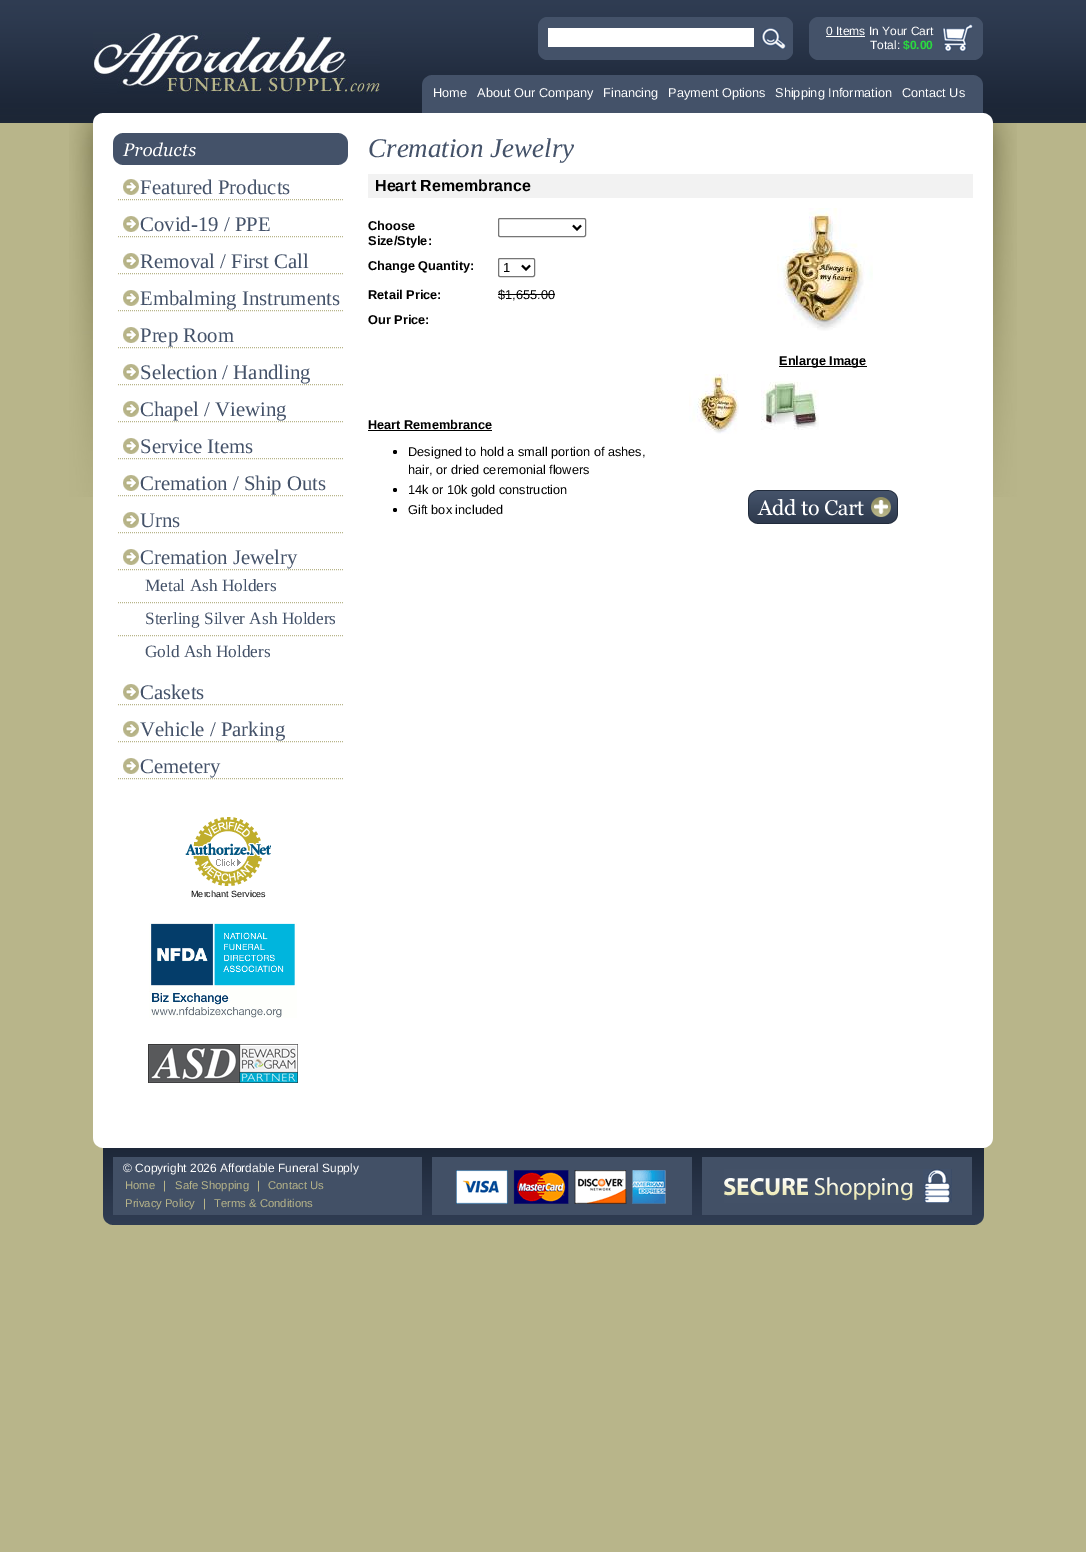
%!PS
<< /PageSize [1086 1552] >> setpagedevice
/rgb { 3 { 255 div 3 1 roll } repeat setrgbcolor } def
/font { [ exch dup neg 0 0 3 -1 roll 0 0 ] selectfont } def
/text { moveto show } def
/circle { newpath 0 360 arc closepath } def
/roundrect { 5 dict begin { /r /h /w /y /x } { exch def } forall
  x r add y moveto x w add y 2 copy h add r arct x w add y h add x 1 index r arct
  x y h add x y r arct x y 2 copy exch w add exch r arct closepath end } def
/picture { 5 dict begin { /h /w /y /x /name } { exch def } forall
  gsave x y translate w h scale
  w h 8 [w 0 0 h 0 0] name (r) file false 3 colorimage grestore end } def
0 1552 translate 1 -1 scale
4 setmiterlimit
184 181 138 rgb
0 0 1086 1552 rectfill
(img_01.rgb) 0 0 1086 123 picture
(img_02.rgb) 93 75 900 48 picture
(img_03.rgb) 93 32 287 62 picture
(img_04.rgb) 538 17 255 43 picture
255 255 255 rgb
548 28 206 19 rectfill
(img_05.rgb) 809 17 174 43 picture
826 36 39 1 rectfill
(img_06.rgb) 69 123 948 374 picture
93 123 900 1014 rectfill
(img_07.rgb) 113 133 235 32 picture
(img_08.rgb) 123 179 16 16 picture
184 181 138 rgb
[1 1] 0 setdash
118 199.5 moveto 225 0 rlineto stroke
(img_08.rgb) 123 216 16 16 picture
118 236.5 moveto 225 0 rlineto stroke
(img_08.rgb) 123 253 16 16 picture
118 273.5 moveto 225 0 rlineto stroke
(img_08.rgb) 123 290 16 16 picture
118 310.5 moveto 225 0 rlineto stroke
(img_08.rgb) 123 327 16 16 picture
118 347.5 moveto 225 0 rlineto stroke
(img_08.rgb) 123 364 16 16 picture
118 384.5 moveto 225 0 rlineto stroke
(img_08.rgb) 123 401 16 16 picture
118 421.5 moveto 225 0 rlineto stroke
(img_08.rgb) 123 438 16 16 picture
118 458.5 moveto 225 0 rlineto stroke
(img_08.rgb) 123 475 16 16 picture
118 495.5 moveto 225 0 rlineto stroke
(img_08.rgb) 123 512 16 16 picture
118 532.5 moveto 225 0 rlineto stroke
(img_08.rgb) 123 549 16 16 picture
118 569.5 moveto 225 0 rlineto stroke
118 602.5 moveto 225 0 rlineto stroke
118 635.5 moveto 225 0 rlineto stroke
(img_08.rgb) 123 684 16 16 picture
118 704.5 moveto 225 0 rlineto stroke
(img_08.rgb) 123 721 16 16 picture
118 741.5 moveto 225 0 rlineto stroke
(img_08.rgb) 123 758 16 16 picture
118 778.5 moveto 225 0 rlineto stroke
(img_09.rgb) 185 817 86 69 picture
(img_10.rgb) 149 923 148 95 picture
(img_11.rgb) 148 1044 150 39 picture
242 242 242 rgb
368 174 605 24 rectfill
118 118 118 rgb
[] 0 setdash
498.5 218.5 87 18 1.5 roundrect stroke
0 0 0 rgb
2 setlinewidth
573 225.5 moveto 4 4 rlineto 4 -4 rlineto stroke
118 118 118 rgb
1 setlinewidth
498.5 258.5 36 18 1.5 roundrect stroke
0 0 0 rgb
2 setlinewidth
522 265.5 moveto 4 4 rlineto 4 -4 rlineto stroke
498 294 57 1 rectfill
368 430 124 1 rectfill
395 452 2 circle fill
395 490 2 circle fill
395 510 2 circle fill
(img_12.rgb) 777 208 96 123 picture
779 366 88 1 rectfill
(img_13.rgb) 689 374 50 60 picture
(img_14.rgb) 761 381 58 49 picture
(img_15.rgb) 748 490 150 34 picture
(img_16.rgb) 93 1137 900 88 picture
66 80 102 rgb
113 1157 309 58 rectfill
432 1157 260 58 rectfill
(img_17.rgb) 456 1170 210 34 picture
702 1157 270 58 rectfill
(img_18.rgb) 724 1169 228 34 picture
/LiberationSans-Regular 12 font
255 255 255 rgb
(0 Items In Your Cart) 826 35 text
(Total:) 870 49 text
/LiberationSans-Bold 12 font
42 218 63 rgb
($0.00) 903 49 text
/LiberationSans-Regular 12.75 font
255 255 255 rgb
(Home) 433 97 text
(About Our Company) 477 97 text
(Financing) 603 97 text
(Payment Options) 668 97 text
(Shipping Information) 775 97 text
(Contact Us) 902 97 text
/LiberationSerif-Regular 20.75 font
68 82 105 rgb
(Featured Products) 140 194 text
(Covid-19 / PPE) 140 231 text
(Removal / First Call) 140 268 text
(Embalming Instruments) 140 305 text
(Prep Room) 140 342 text
(Selection / Handling) 140 379 text
(Chapel / Viewing) 140 416 text
(Service Items) 140 453 text
(Cremation / Ship Outs) 140 490 text
(Urns) 140 527 text
(Cremation Jewelry) 140 564 text
/LiberationSerif-Regular 17.25 font
(Metal Ash Holders) 145 591 text
(Sterling Silver Ash Holders) 145 624 text
(Gold Ash Holders) 145 657 text
/LiberationSerif-Regular 20.75 font
(Caskets) 140 699 text
(Vehicle / Parking) 140 736 text
(Cemetery) 140 773 text
/LiberationSans-Regular 9 font
0 0 0 rgb
(Merchant Services) 191 897 text
/LiberationSerif-Italic 27 font
68 82 105 rgb
(Cremation Jewelry) 368 157 text
/LiberationSans-Bold 16 font
0 0 0 rgb
(Heart Remembrance) 375 191 text
/LiberationSans-Bold 12.75 font
(Choose) 368 230 text
(Size/Style:) 368 245 text
(Change Quantity:) 368 270 text
/LiberationSans-Regular 13 font
(1) 503 272 text
/LiberationSans-Bold 12.75 font
(Retail Price:) 368 299 text
/LiberationSans-Regular 12.75 font
($1,655.00) 498 299 text
/LiberationSans-Bold 12.75 font
(Our Price:) 368 324 text
(Heart Remembrance) 368 429 text
/LiberationSans-Regular 12.75 font
(Designed to hold a small portion of ashes,) 408 456 text
(hair, or dried ceremonial flowers) 408 474 text
(14k or 10k gold construction) 408 494 text
(Gift box included) 408 514 text
/LiberationSans-Bold 12.75 font
(Enlarge Image) 779 365 text
/LiberationSans-Regular 12 font
255 255 255 rgb
(© Copyright 2026 Affordable Funeral Supply) 123 1172 text
/LiberationSans-Regular 11.25 font
184 181 138 rgb
(Home) 125 1189 text
(|) 163 1189 text
(Safe Shopping) 175 1189 text
(|) 257 1189 text
(Contact Us) 268 1189 text
(Privacy Policy) 125 1207 text
(|) 203 1207 text
(Terms & Conditions) 214 1207 text
showpage
